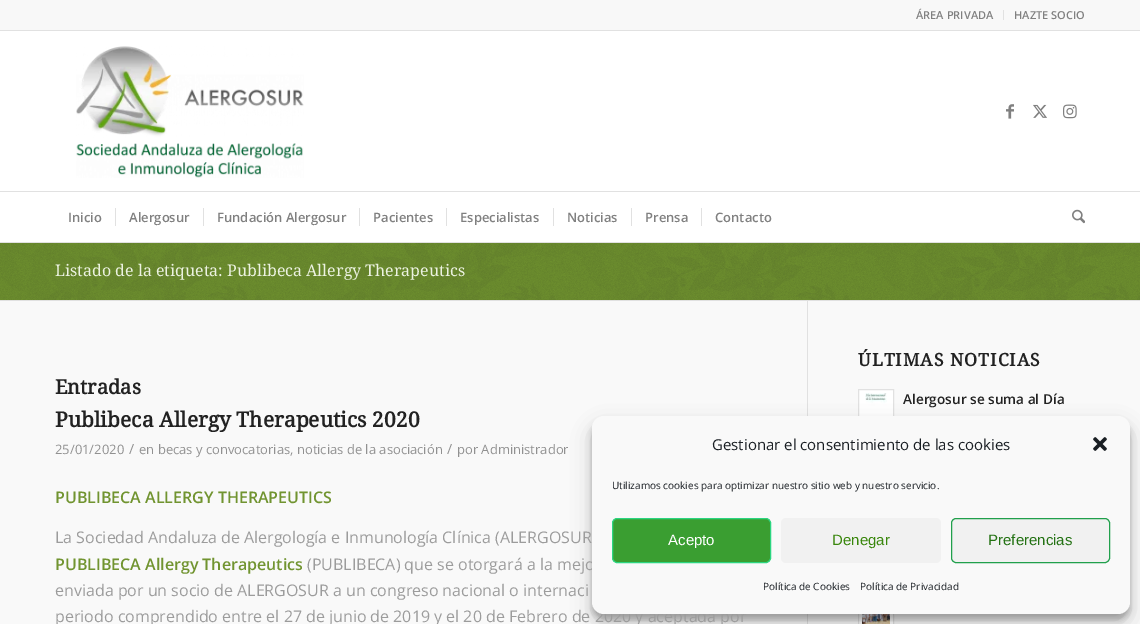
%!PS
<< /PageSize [1140 624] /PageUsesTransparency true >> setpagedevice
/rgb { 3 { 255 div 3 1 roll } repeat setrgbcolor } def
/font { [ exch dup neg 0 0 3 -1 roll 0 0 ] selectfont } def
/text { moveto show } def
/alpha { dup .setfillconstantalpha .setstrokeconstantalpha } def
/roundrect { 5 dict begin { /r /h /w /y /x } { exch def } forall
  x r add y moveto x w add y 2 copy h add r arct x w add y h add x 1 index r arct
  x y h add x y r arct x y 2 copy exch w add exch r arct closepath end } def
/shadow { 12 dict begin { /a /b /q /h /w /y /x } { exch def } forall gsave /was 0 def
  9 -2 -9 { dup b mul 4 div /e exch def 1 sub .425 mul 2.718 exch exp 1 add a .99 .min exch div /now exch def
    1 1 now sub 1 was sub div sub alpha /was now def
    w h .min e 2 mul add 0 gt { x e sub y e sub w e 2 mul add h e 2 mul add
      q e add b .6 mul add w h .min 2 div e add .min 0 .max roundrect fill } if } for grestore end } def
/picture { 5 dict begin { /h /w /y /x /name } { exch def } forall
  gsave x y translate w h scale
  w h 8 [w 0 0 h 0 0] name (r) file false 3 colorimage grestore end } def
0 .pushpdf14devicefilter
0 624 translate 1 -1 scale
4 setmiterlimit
255 255 255 rgb
0 0 1140 624 rectfill
248 248 248 rgb
0 0 1140 30 rectfill
225 225 225 rgb
0 30 1140 1 rectfill
1003 10 1 10 rectfill
0 242 1140 1 rectfill
(img_01.rgb) 76 46 228 132 picture
(img_02.rgb) 1006 104 8 15 picture
(img_03.rgb) 1033 104 14 14 picture
(img_04.rgb) 1063 104 14 15 picture
0 191 1140 1 rectfill
115 208 1 18 rectfill
203 208 1 18 rectfill
359 208 1 18 rectfill
446 208 1 18 rectfill
553 208 1 18 rectfill
631 208 1 18 rectfill
701 208 1 18 rectfill
(img_05.rgb) 1072 209 13 15 picture
113 148 48 rgb
0 243 1140 57 rectfill
(img_06.rgb) 0 243 1140 57 picture
249 249 249 rgb
0 301 1140 323 rectfill
225 225 225 rgb
0 300 1140 1 rectfill
807 301 1 323 rectfill
255 255 255 rgb
859 390 34 26 rectfill
225 225 225 rgb
858.5 389.5 35 35 rectstroke
(img_07.rgb) 865 393 22 23 picture
255 255 255 rgb
859 614 34 10 rectfill
225 225 225 rgb
858.5 598.5 35 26 rectstroke
(img_08.rgb) 862 614 28 10 picture
0 0 0 rgb
592 422 538 198 12 3 0.23 shadow
592 426 538 198 12 10 0.19 shadow
/OpenSans-SemiBold 11 font
128 128 128 rgb
(ÁREA PRIVADA) 916 19 text
(HAZTE SOCIO) 1014 19 text
/OpenSans-SemiBold 13 font
(Inicio) 68 222 text
(Alergosur) 129 222 text
(Fundación Alergosur) 217 222 text
(Pacientes) 373 222 text
(Especialistas) 460 222 text
(Noticias) 567 222 text
(Prensa) 645 222 text
(Contacto) 715 222 text
/DroidSerif-Regular 16 font
236 242 225 rgb
(Listado de la etiqueta: Publibeca Allergy Therapeutics) 55 276 text
/DroidSerif-Bold 20 font
34 34 34 rgb
(Entradas) 55 394 text
/DroidSerif-Bold 21 font
(Publibeca Allergy Therapeutics 2020) 55 427 text
/OpenSans-Regular 13 font
145 145 145 rgb
(25/01/2020) 55 454 text
/OpenSans-Regular 14 font
(/) 129 454 text
/OpenSans-Regular 13 font
(en becas y convocatorias, noticias de la asociación) 139 454 text
/OpenSans-Regular 14 font
(/) 447 454 text
/OpenSans-Regular 13 font
(por Administrador) 457 454 text
/OpenSans-SemiBold 16 font
113 148 48 rgb
(PUBLIBECA ALLERGY THERAPEUTICS) 55 503 text
/OpenSans-Regular 16 font
156 156 156 rgb
(La Sociedad Andaluza de Alergología e Inmunología Clínica \(ALERGOSUR) 55 543 text
/OpenSans-SemiBold 16 font
113 148 48 rgb
(PUBLIBECA Allergy Therapeutics) 55 570 text
/OpenSans-Regular 16 font
156 156 156 rgb
(\(PUBLIBECA\) que se otorgará a la mejo) 307 570 text
(enviada por un socio de ALERGOSUR a un congreso nacional o internaci) 55 596 text
(periodo comprendido entre el 27 de junio de 2019 y el 20 de Febrero de 2020 y aceptada por) 55 622 text
/DroidSerif-Bold 17.6 font
34 34 34 rgb
858 366 moveto 1 0 (ÚLTIMAS NOTICIAS) ashow
/OpenSans-SemiBold 13.6 font
(Alergosur se suma al Día) 903 404 text
249 249 249 rgb
592 416 538 198 12 roundrect fill
/OpenSans-Regular 15 font
25 30 35 rgb
(Gestionar el consentimiento de las cookies) 712 450 text
(img_09.rgb) 1093 437 14 14 picture
/OpenSans-Regular 10 font
(Utilizamos cookies para optimizar nuestro sitio web y nuestro servicio.) 612 489 text
58 158 49 rgb
612.5 518.5 158 44 4.5 roundrect gsave fill grestore
44 214 129 rgb
stroke
/LiberationSans-Regular 15 font
255 255 255 rgb
(Acepto) 668 545 text
241 241 241 rgb
781 518 160 45 5 roundrect fill
58 135 13 rgb
(Denegar) 832 545 text
241 241 241 rgb
951.5 518.5 158 44 4.5 roundrect gsave fill grestore
33 160 76 rgb
stroke
36 114 20 rgb
(Preferencias) 988 545 text
/OpenSans-Regular 10 font
25 30 35 rgb
(Política de Cookies) 763 590 text
(Política de Privacidad) 860 590 text
.poppdf14devicefilter showpage
